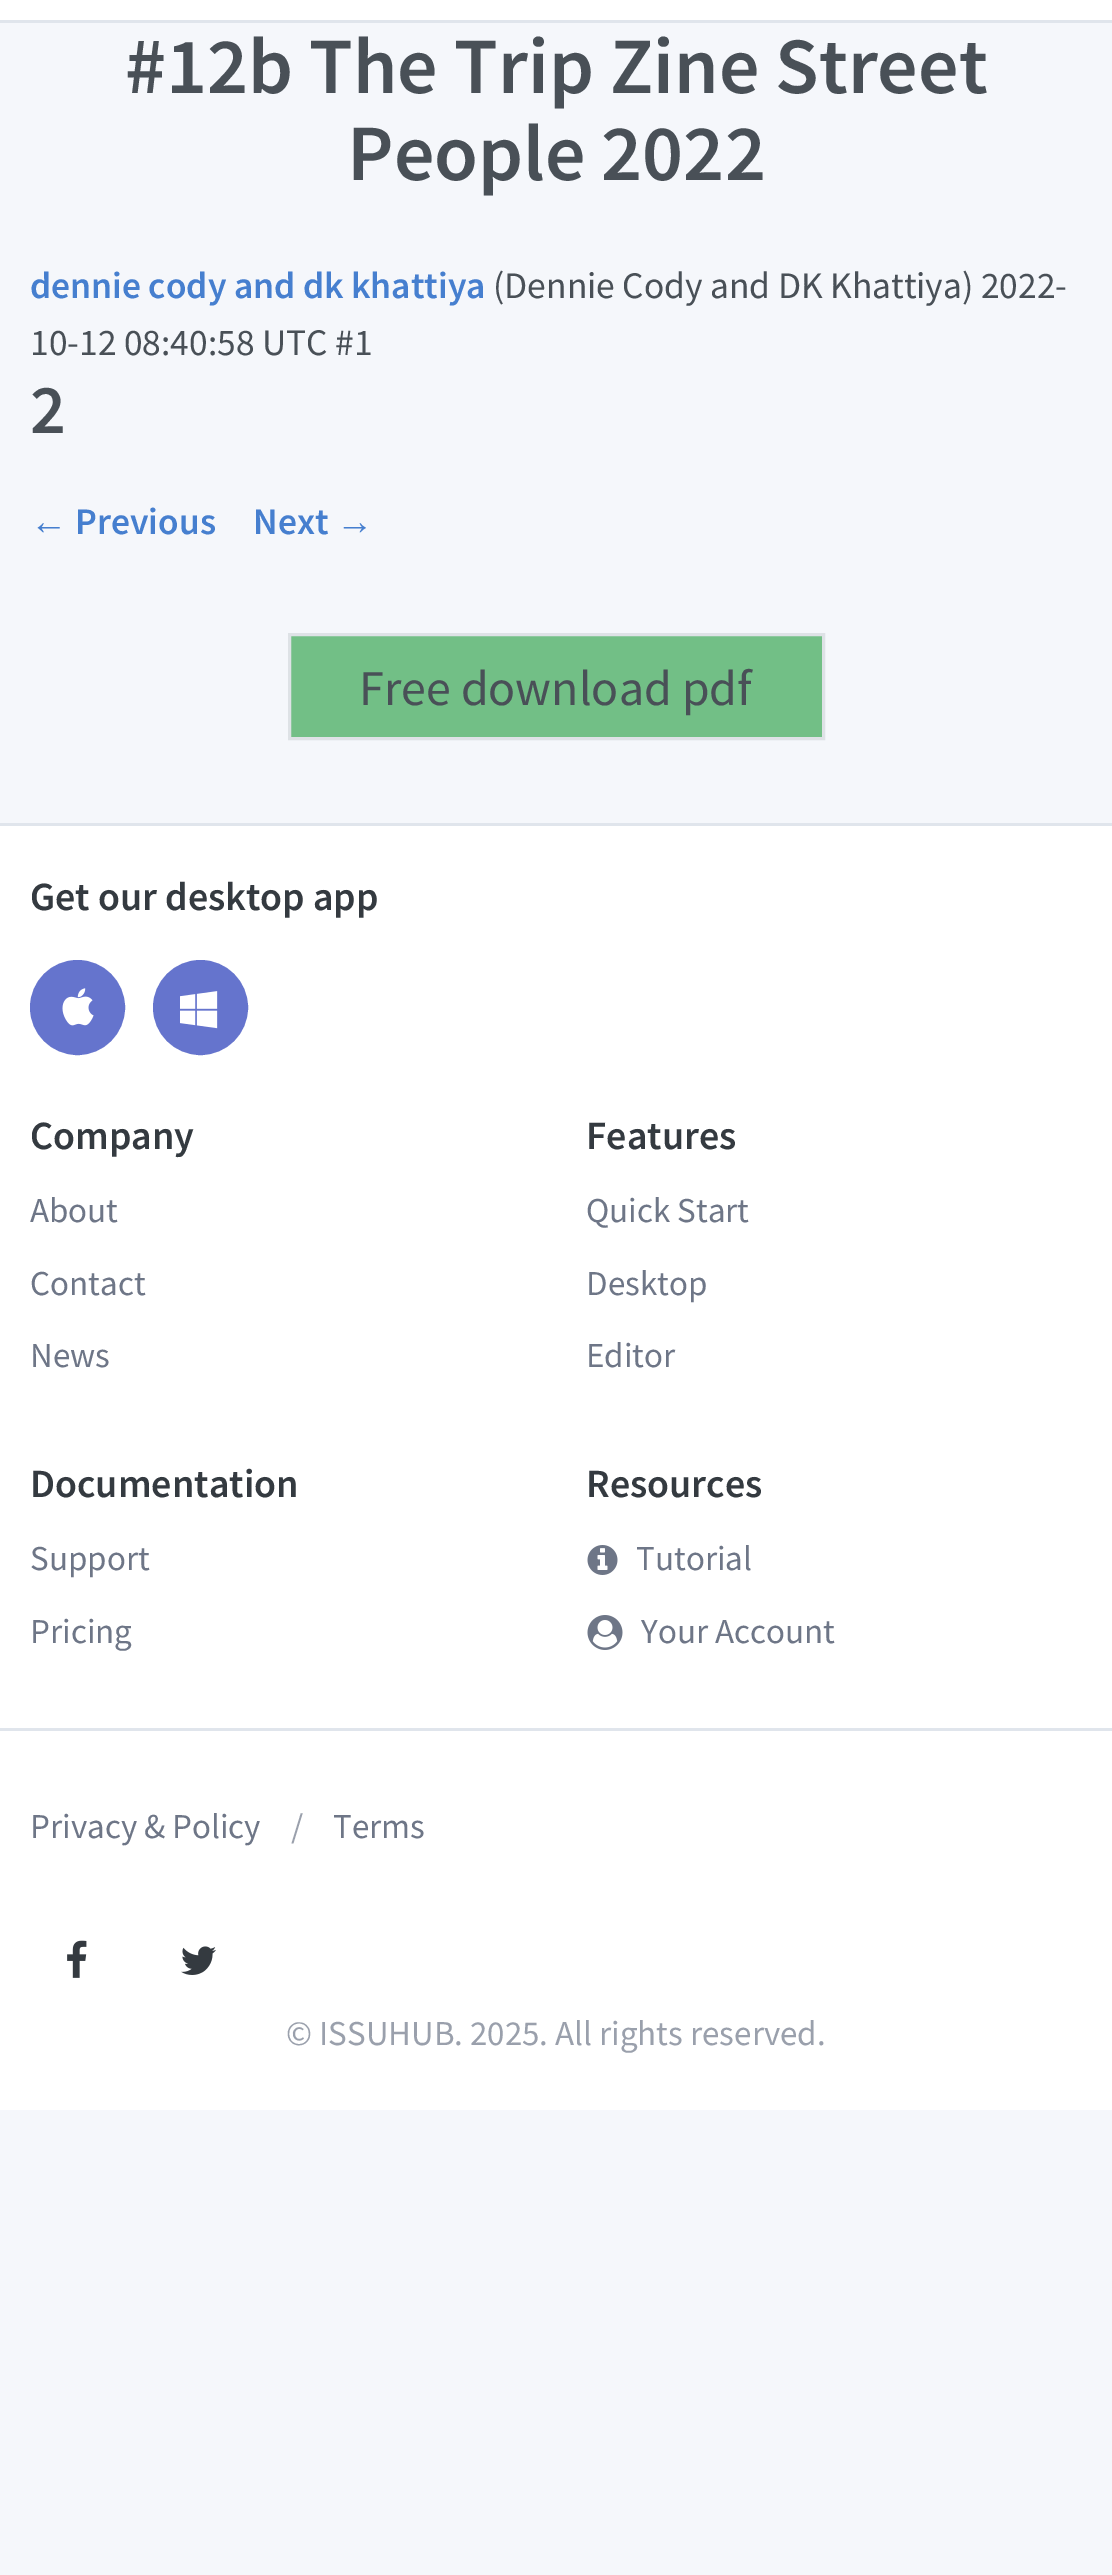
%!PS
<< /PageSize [1112 2575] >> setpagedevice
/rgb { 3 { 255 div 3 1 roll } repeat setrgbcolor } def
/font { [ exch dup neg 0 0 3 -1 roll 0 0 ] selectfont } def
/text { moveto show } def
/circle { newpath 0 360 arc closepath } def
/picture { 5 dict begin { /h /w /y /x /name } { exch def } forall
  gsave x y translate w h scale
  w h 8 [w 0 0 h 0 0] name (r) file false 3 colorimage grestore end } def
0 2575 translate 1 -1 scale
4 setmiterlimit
245 247 251 rgb
0 0 1112 2575 rectfill
255 255 255 rgb
0 0 1112 20 rectfill
224 229 236 rgb
0 20 1112 3 rectfill
114 191 134 rgb
289.5 634.5 moveto 534 0 rlineto 0 104 rlineto -534 0 rlineto closepath gsave fill grestore
222 226 230 rgb
3 setlinewidth
stroke
255 255 255 rgb
0 826 1112 902 rectfill
224 229 236 rgb
0 823 1112 3 rectfill
101 116 205 rgb
77.5 1007.5 46 circle gsave fill grestore
stroke
(img_01.rgb) 62 988 32 38 picture
200.5 1007.5 46 circle gsave fill grestore
stroke
(img_02.rgb) 180 991 38 38 picture
(img_03.rgb) 587 1545 31 30 picture
(img_04.rgb) 587 1615 36 35 picture
255 255 255 rgb
0 1731 1112 379 rectfill
224 229 236 rgb
0 1728 1112 3 rectfill
(img_05.rgb) 67 1940 20 38 picture
(img_06.rgb) 181 1946 35 29 picture
/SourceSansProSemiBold-SemiBold 80 font
73 80 87 rgb
(#12b The Trip Zine Street) 125 93 text
(People 2022) 347 180 text
/SourceSansProSemiBold-SemiBold 37.5 font
70 127 207 rgb
(dennie cody and dk khattiya) 30 298 text
/SourceSansPro-Regular 37.5 font
73 80 87 rgb
(\(Dennie Cody and DK Khattiya\) 2022-) 493 298 text
(10-12 08:40:58 UTC #1) 30 355 text
/SourceSansProSemiBold-SemiBold 70 font
(2) 30 433 text
/LiberationSans-Bold 37.5 font
70 127 207 rgb
(←) 30 534 text
/SourceSansProSemiBold-SemiBold 37.5 font
(Previous) 75 534 text
(Next) 253 534 text
/LiberationSans-Bold 37.5 font
(→) 336 534 text
/SourceSansPro-Regular 50 font
73 80 87 rgb
(Free download pdf) 359 705 text
/SourceSansProSemiBold-SemiBold 40 font
52 58 64 rgb
(Get our desktop app) 30 910 text
(Company) 30 1149 text
/SourceSansPro-Regular 35 font
110 118 135 rgb
(About) 30 1222 text
(Contact) 30 1295 text
(News) 30 1367 text
/SourceSansProSemiBold-SemiBold 40 font
52 58 64 rgb
(Features) 586 1149 text
/SourceSansPro-Regular 35 font
110 118 135 rgb
(Quick Start) 586 1222 text
(Desktop) 586 1295 text
(Editor) 586 1367 text
/SourceSansProSemiBold-SemiBold 40 font
52 58 64 rgb
(Documentation) 30 1497 text
/SourceSansPro-Regular 35 font
110 118 135 rgb
(Support) 30 1570 text
(Pricing) 30 1643 text
/SourceSansProSemiBold-SemiBold 40 font
52 58 64 rgb
(Resources) 586 1497 text
/SourceSansPro-Regular 35 font
110 118 135 rgb
(Tutorial) 636 1570 text
(Your Account) 641 1643 text
(Privacy & Policy) 30 1838 text
154 160 172 rgb
(/) 291 1838 text
110 118 135 rgb
(Terms) 333 1838 text
154 160 172 rgb
(© ISSUHUB. 2025. All rights reserved.) 286 2045 text
showpage
